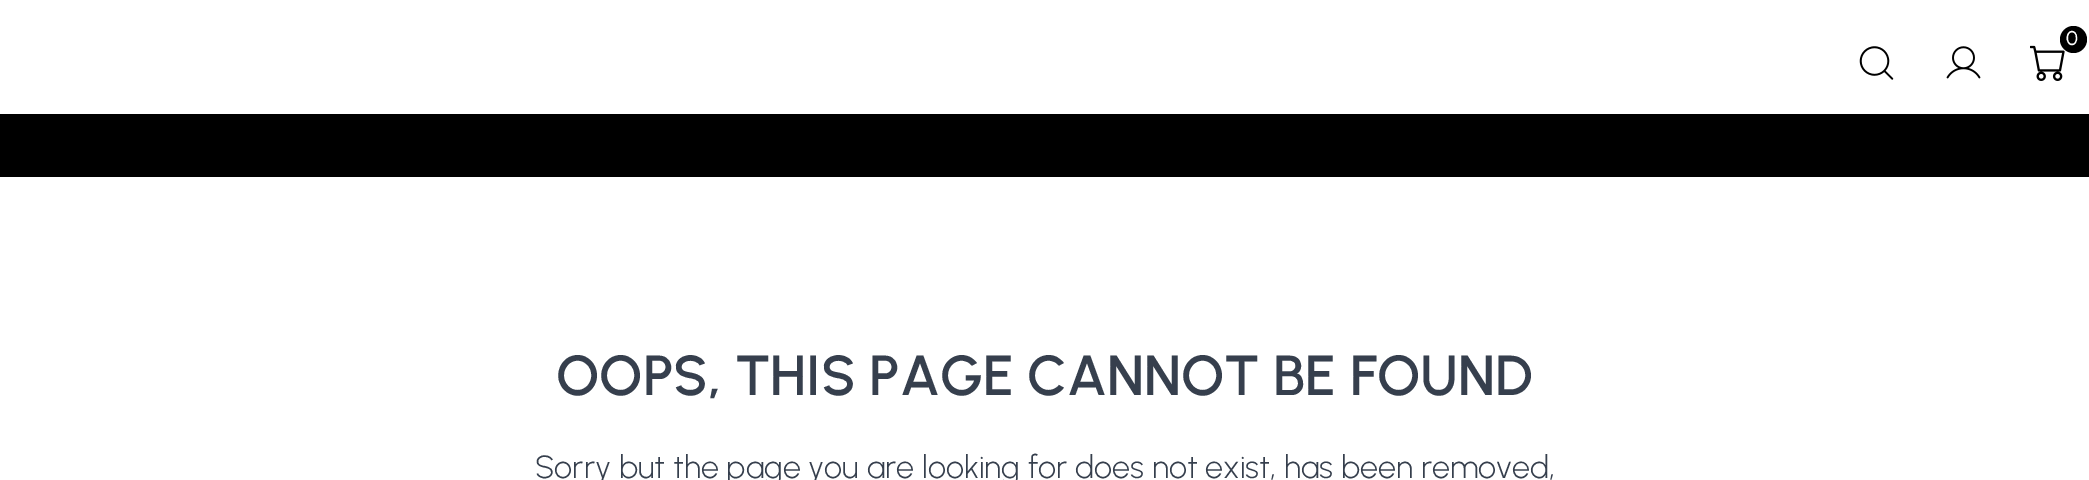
%!PS
<< /PageSize [2089 480] >> setpagedevice
/rgb { 3 { 255 div 3 1 roll } repeat setrgbcolor } def
/font { [ exch dup neg 0 0 3 -1 roll 0 0 ] selectfont } def
/text { moveto show } def
/circle { newpath 0 360 arc closepath } def
/picture { 5 dict begin { /h /w /y /x /name } { exch def } forall
  gsave x y translate w h scale
  w h 8 [w 0 0 h 0 0] name (r) file false 3 colorimage grestore end } def
0 480 translate 1 -1 scale
4 setmiterlimit
255 255 255 rgb
0 0 2089 480 rectfill
(img_01.rgb) 2030 45 35 36 picture
0 0 0 rgb
2073.5 39.5 13.5 circle fill
(img_02.rgb) 1946 46 35 33 picture
(img_03.rgb) 1859 46 35 34 picture
0 114 2089 63 rectfill
/Urbanist-Medium 20 font
255 255 255 rgb
2066 45 moveto 2 0 (0) ashow
/Urbanist-SemiBold 56.25 font
54 63 77 rgb
(OOPS, THIS PAGE CANNOT BE FOUND) 556 395 text
/Urbanist-Light 32.15 font
(Sorry but the page you are looking for does not exist, has been removed,) 535 478 text
showpage
